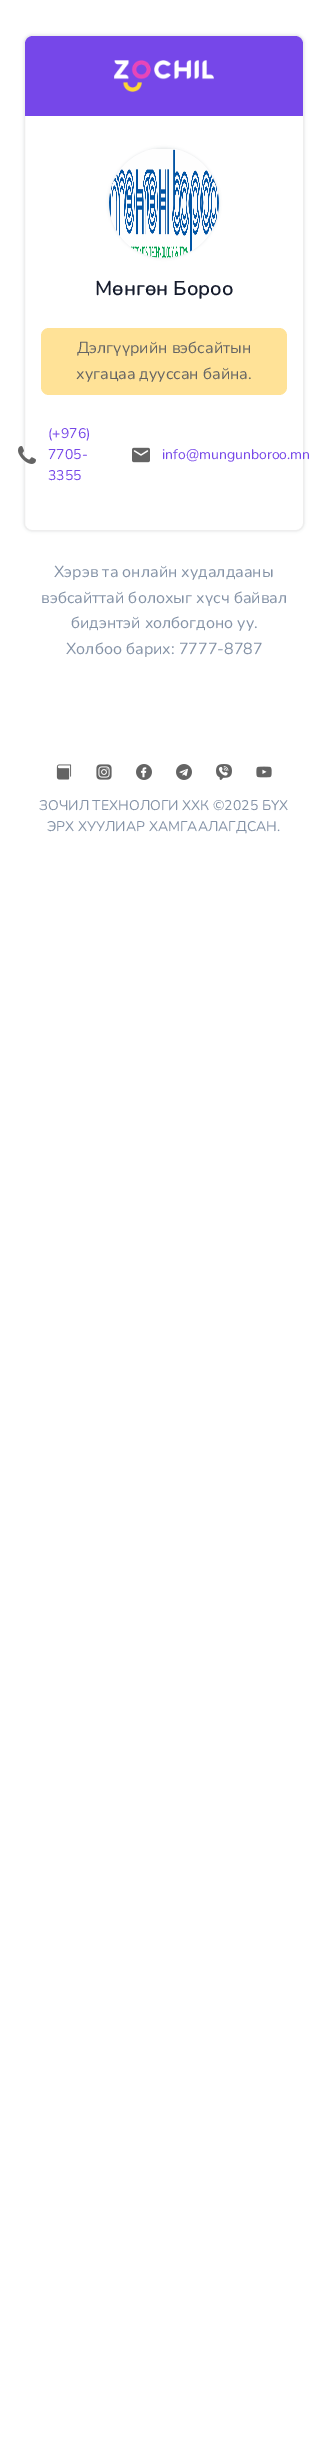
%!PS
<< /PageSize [328 2449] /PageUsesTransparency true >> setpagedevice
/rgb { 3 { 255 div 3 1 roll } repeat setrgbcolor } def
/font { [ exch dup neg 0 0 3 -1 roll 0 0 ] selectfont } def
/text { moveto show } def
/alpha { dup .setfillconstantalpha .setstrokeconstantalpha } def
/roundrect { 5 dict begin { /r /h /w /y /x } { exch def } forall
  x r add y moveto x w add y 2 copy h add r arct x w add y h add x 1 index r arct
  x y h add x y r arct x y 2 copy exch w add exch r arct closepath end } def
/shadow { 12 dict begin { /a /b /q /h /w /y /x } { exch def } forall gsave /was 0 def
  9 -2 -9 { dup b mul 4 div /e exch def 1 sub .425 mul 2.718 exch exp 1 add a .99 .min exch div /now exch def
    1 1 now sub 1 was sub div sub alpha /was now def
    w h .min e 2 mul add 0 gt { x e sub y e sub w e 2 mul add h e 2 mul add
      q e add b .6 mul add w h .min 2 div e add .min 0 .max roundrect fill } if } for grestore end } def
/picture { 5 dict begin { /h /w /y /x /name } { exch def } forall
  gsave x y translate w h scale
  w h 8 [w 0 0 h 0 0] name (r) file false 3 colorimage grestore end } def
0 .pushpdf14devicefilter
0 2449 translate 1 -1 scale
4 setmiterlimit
255 255 255 rgb
0 0 328 2449 rectfill
gsave
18 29 moveto 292 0 rlineto 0 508 rlineto -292 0 rlineto closepath 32 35 moveto 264 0 rlineto 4.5 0 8 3.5 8 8 rcurveto 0 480 rlineto 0 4.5 -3.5 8 -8 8 rcurveto -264 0 rlineto -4.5 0 -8 -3.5 -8 -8 rcurveto 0 -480 rlineto 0 -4.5 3.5 -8 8 -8 rcurveto closepath eoclip newpath
60 72 88 rgb
24 35 280 496 8 1.5 0.15 shadow
grestore
238 238 238 rgb
24.5 35.5 279 495 7.5 roundrect stroke
118 71 233 rgb
33 36 moveto 262 0 rlineto 4.5 0 8 3.5 8 8 rcurveto 0 72 rlineto -278 0 rlineto 0 -72 rlineto 0 -4.5 3.5 -8 8 -8 rcurveto closepath fill
(img_01.rgb) 114 60 100 32 picture
60 72 88 rgb
109 148 110 110 55 1.5 0.15 shadow
(img_02.rgb) 109 149 110 109 picture
255 226 151 rgb
41 328 246 67 8 roundrect fill
(img_03.rgb) 18 446 18 18 picture
(img_04.rgb) 132 447 18 16 picture
(img_05.rgb) 56 764 16 16 picture
(img_06.rgb) 96 764 16 16 picture
(img_07.rgb) 136 764 16 16 picture
(img_08.rgb) 176 764 16 16 picture
(img_09.rgb) 216 764 16 16 picture
(img_10.rgb) 256 766 16 12 picture
/Nunito-SemiBold 20 font
22 28 45 rgb
(Мөнгөн Бороо) 95 295 text
/Nunito-Regular 16 font
100 100 100 rgb
(Дэлгүүрийн вэбсайтын) 77 353 text
(хугацаа дууссан байна.) 76 379 text
/Nunito-Regular 14 font
118 71 232 rgb
(\(+976\)) 48 438 text
(7705-) 48 459 text
(3355) 48 480 text
(info@mungunboroo.mn) 162 459 text
/Nunito-Regular 16 font
132 146 166 rgb
(Хэрэв та онлайн худалдааны) 54 577 text
(вэбсайттай болохыг хүсч байвал) 41 603 text
(бидэнтэй холбогдоно уу.) 71 628 text
(Холбоо барих: 7777-8787) 66 654 text
/Nunito-Regular 14 font
(ЗОЧИЛ ТЕХНОЛОГИ ХХК ©2025 БҮХ) 39 810 text
(ЭРХ ХУУЛИАР ХАМГААЛАГДСАН.) 47 831 text
.poppdf14devicefilter showpage
